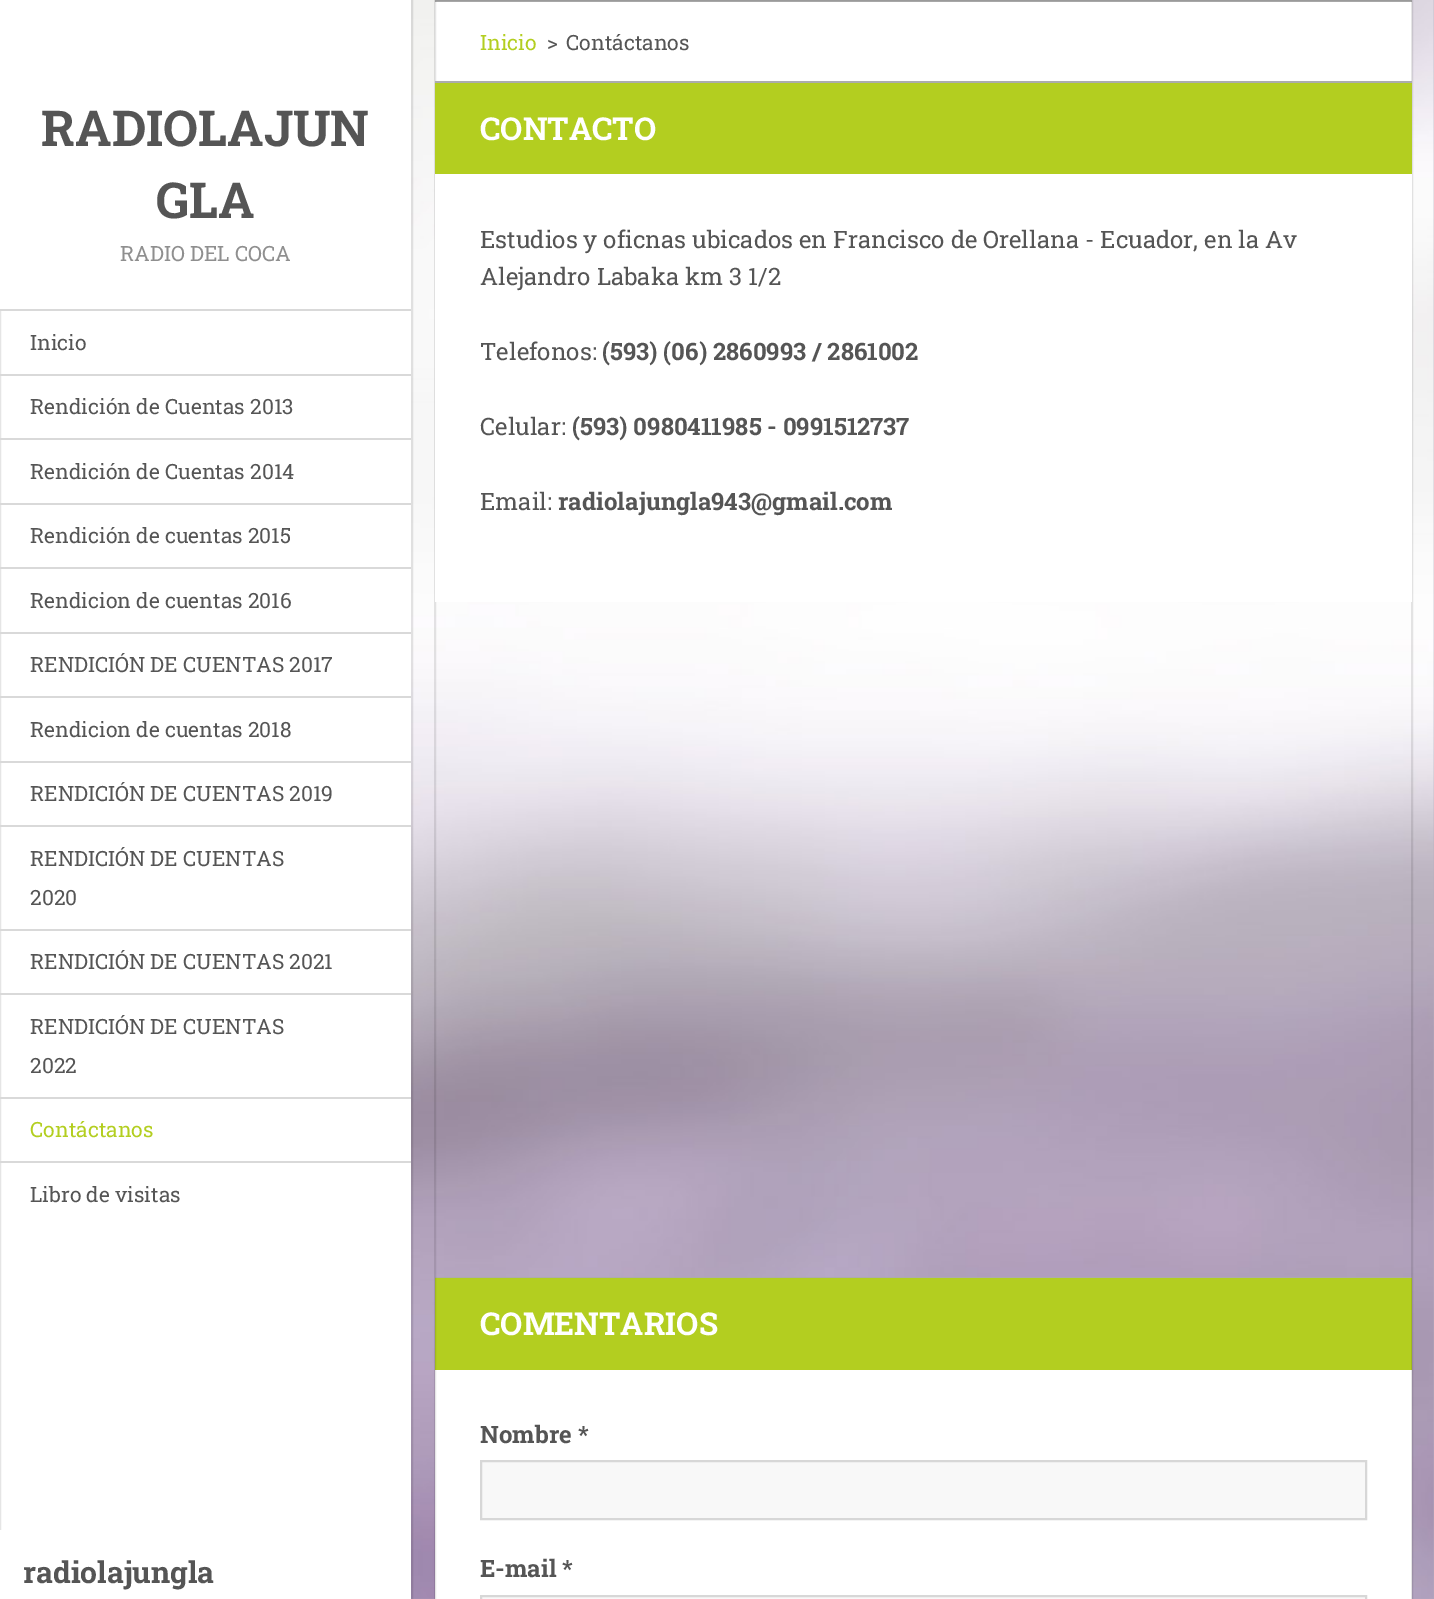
%!PS
<< /PageSize [1434 1599] /PageUsesTransparency true >> setpagedevice
/rgb { 3 { 255 div 3 1 roll } repeat setrgbcolor } def
/font { [ exch dup neg 0 0 3 -1 roll 0 0 ] selectfont } def
/text { moveto show } def
/alpha { dup .setfillconstantalpha .setstrokeconstantalpha } def
/picture { 5 dict begin { /h /w /y /x /name } { exch def } forall
  gsave x y translate w h scale
  w h 8 [w 0 0 h 0 0] name (r) file false 3 colorimage grestore end } def
0 .pushpdf14devicefilter
0 1599 translate 1 -1 scale
4 setmiterlimit
182 173 188 rgb
0 0 1434 1599 rectfill
(img_01.rgb) 411 0 1023 1599 picture
255 255 255 rgb
0 311 411 1219 rectfill
0.1 alpha
0 0 0 rgb
2 setlinewidth
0 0 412 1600 rectstroke
1 alpha
255 255 255 rgb
0 0 411 309 rectfill
217 217 217 rgb
0 309 411 2 rectfill
0 374 411 2 rectfill
0 438 411 2 rectfill
0 503 411 2 rectfill
0 567 411 2 rectfill
0 632 411 2 rectfill
0 696 411 2 rectfill
0 761 411 2 rectfill
0 825 411 2 rectfill
0 929 411 2 rectfill
0 993 411 2 rectfill
0 1097 411 2 rectfill
0 1161 411 2 rectfill
255 255 255 rgb
0 1530 411 69 rectfill
435 2 977 79 rectfill
172 172 172 rgb
435 0 977 2 rectfill
435 1277 977 1 rectfill
179 206 32 rgb
435 1278 977 92 rectfill
255 255 255 rgb
435 1370 977 229 rectfill
0.1 alpha
0 0 0 rgb
435 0 977 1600 rectstroke
1 alpha
172 172 172 rgb
435 81 977 2 rectfill
179 206 32 rgb
435 83 977 91 rectfill
255 255 255 rgb
435 174 977 428 rectfill
248 248 248 rgb
481 1461 moveto 885 0 rlineto 0 58 rlineto -885 0 rlineto closepath gsave fill grestore
215 215 215 rgb
stroke
248 248 248 rgb
481 1596 moveto 885 0 rlineto 0 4 rlineto -885 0 rlineto closepath gsave fill grestore
215 215 215 rgb
stroke
/RobotoSlab-Bold 49.5 font
85 85 85 rgb
(RADIOLAJUN) 41 146 text
(GLA) 156 218 text
/RobotoSlab-Regular 21 font
143 143 143 rgb
(RADIO DEL COCA) 120 261 text
85 85 85 rgb
(Inicio) 30 350 text
(Rendición de Cuentas 2013) 30 414 text
(Rendición de Cuentas 2014) 30 479 text
(Rendición de cuentas 2015) 30 543 text
(Rendicion de cuentas 2016) 30 608 text
(RENDICIÓN DE CUENTAS 2017) 30 672 text
(Rendicion de cuentas 2018) 30 737 text
(RENDICIÓN DE CUENTAS 2019) 30 801 text
(RENDICIÓN DE CUENTAS) 30 866 text
(2020) 30 905 text
(RENDICIÓN DE CUENTAS 2021) 30 969 text
(RENDICIÓN DE CUENTAS) 30 1034 text
(2022) 30 1073 text
179 206 32 rgb
(Contáctanos) 30 1137 text
85 85 85 rgb
(Libro de visitas) 30 1202 text
/RobotoSlab-Bold 30 font
(radiolajungla) 23 1583 text
/RobotoSlab-Regular 21 font
179 206 32 rgb
(Inicio) 480 50 text
85 85 85 rgb
(>) 547 50 text
(Contáctanos) 566 50 text
/RobotoSlab-Bold 31.5 font
255 255 255 rgb
(CONTACTO) 480 140 text
/RobotoSlab-Regular 24 font
85 85 85 rgb
(Estudios y oficnas ubicados en Francisco de Orellana - Ecuador, en la Av) 480 248 text
(Alejandro Labaka km 3 1/2) 480 285 text
(Telefonos:) 480 360 text
/RobotoSlab-Bold 24 font
(\(593\) \(06\) 2860993 / 2861002) 602 360 text
/RobotoSlab-Regular 24 font
(Celular:) 480 435 text
/RobotoSlab-Bold 24 font
(\(593\) 0980411985 - 0991512737) 572 435 text
/RobotoSlab-Regular 24 font
(Email:) 480 510 text
/RobotoSlab-Bold 24 font
(radiolajungla943@gmail.com) 558 510 text
/RobotoSlab-Bold 31.5 font
255 255 255 rgb
(COMENTARIOS) 480 1335 text
/RobotoSlab-Bold 24 font
85 85 85 rgb
(Nombre *) 480 1443 text
(E-mail *) 480 1577 text
.poppdf14devicefilter showpage
